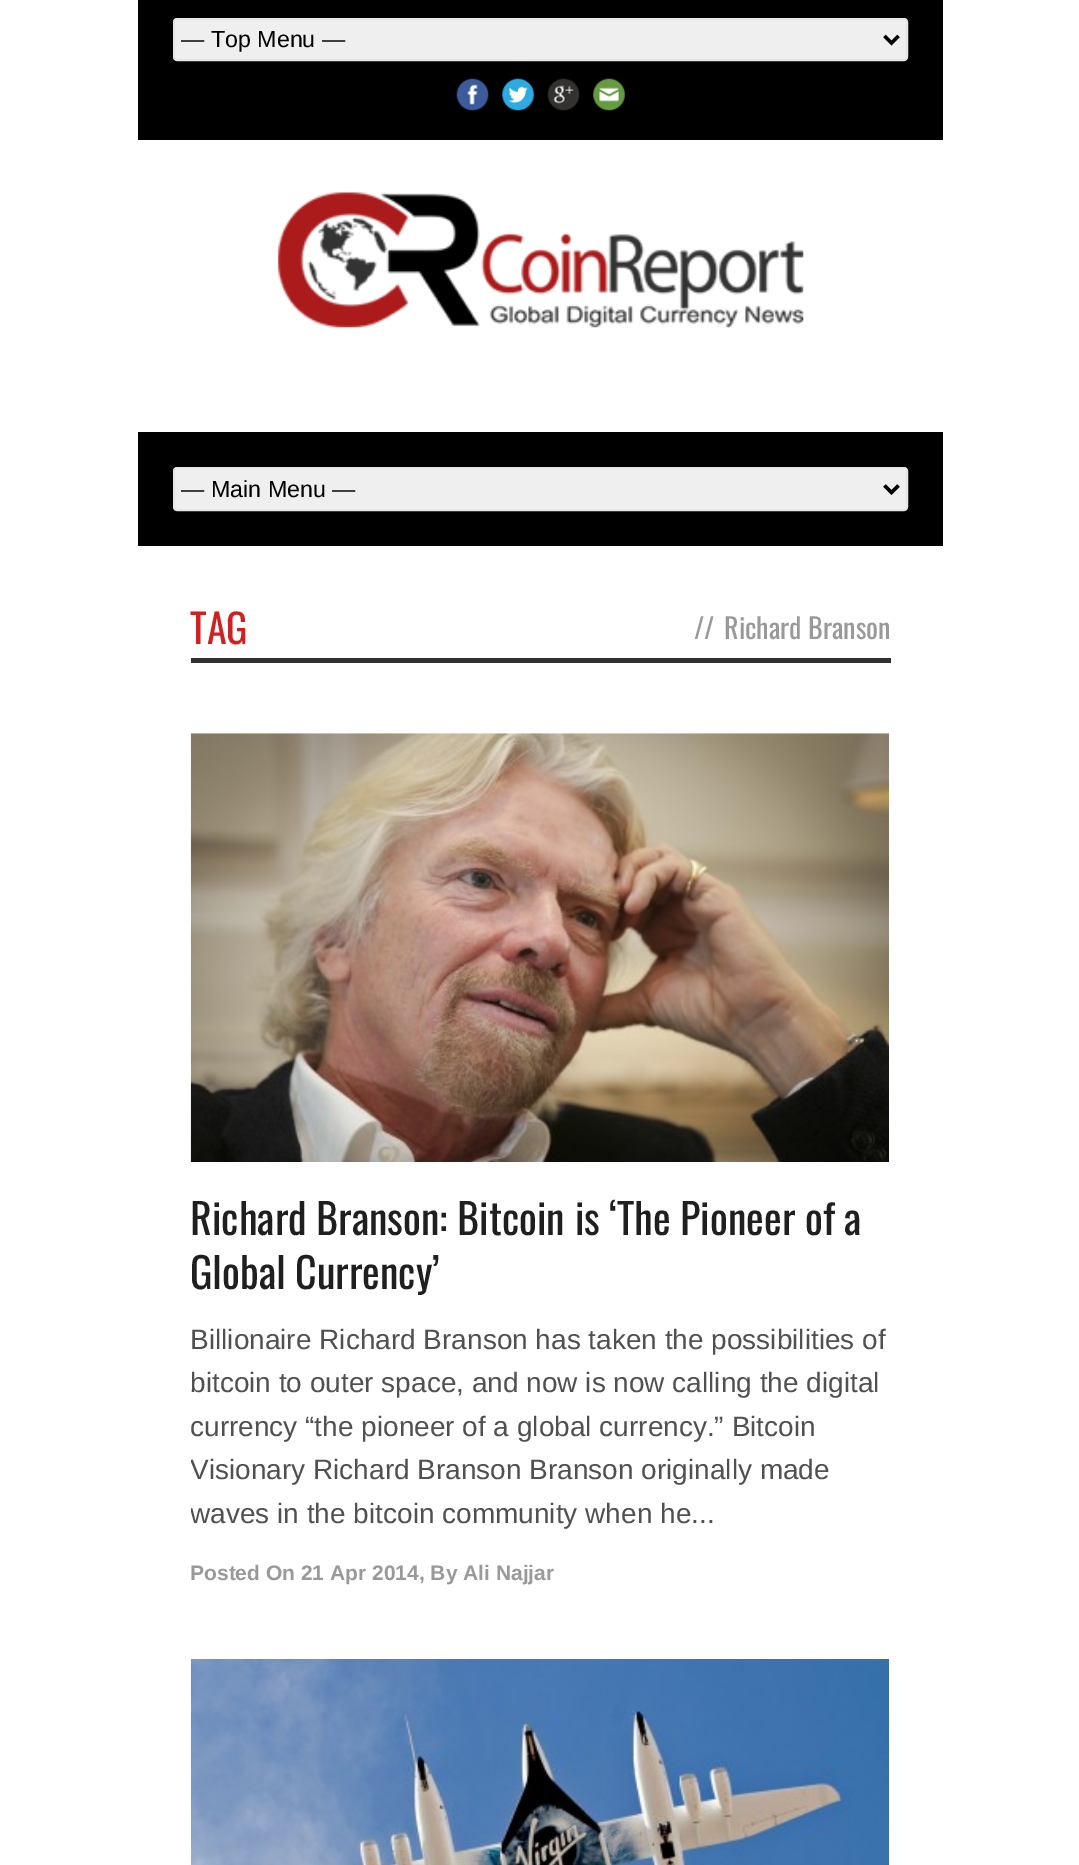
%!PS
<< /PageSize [1079 1865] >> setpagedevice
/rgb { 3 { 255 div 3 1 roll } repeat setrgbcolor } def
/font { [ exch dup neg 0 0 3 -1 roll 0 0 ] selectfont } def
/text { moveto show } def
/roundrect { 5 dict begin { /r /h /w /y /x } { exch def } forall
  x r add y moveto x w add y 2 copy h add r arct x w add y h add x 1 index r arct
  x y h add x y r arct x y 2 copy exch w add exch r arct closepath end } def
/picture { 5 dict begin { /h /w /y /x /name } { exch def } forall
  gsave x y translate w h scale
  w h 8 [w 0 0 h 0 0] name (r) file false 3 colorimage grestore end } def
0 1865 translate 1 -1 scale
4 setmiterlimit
255 255 255 rgb
0 0 1079 1865 rectfill
0 0 0 rgb
138 0 805 140 rectfill
239 239 239 rgb
174 19 733 41 3 roundrect gsave fill grestore
230 230 230 rgb
2 setlinewidth
stroke
0 0 0 rgb
3.5 setlinewidth
884.5 36 moveto 7 7 rlineto 7 -7 rlineto stroke
(img_01.rgb) 456 78 33 33 picture
(img_02.rgb) 502 78 32 33 picture
(img_03.rgb) 547 78 33 33 picture
(img_04.rgb) 593 78 32 33 picture
(img_05.rgb) 278 192 526 136 picture
138 432 805 114 rectfill
239 239 239 rgb
174 468 733 42 3 roundrect gsave fill grestore
230 230 230 rgb
2 setlinewidth
stroke
0 0 0 rgb
3.5 setlinewidth
884.5 485.5 moveto 7 7 rlineto 7 -7 rlineto stroke
49 49 49 rgb
191 658 700 5 rectfill
(img_06.rgb) 190 733 699 429 picture
(img_07.rgb) 190 1659 699 206 picture
/LiberationSans-Regular 23.25 font
0 0 0 rgb
(— Top Menu —) 181 47 text
(— Main Menu —) 181 497 text
/Oswald-Regular 40 font
207 33 33 rgb
(TAG) 190 644 text
/Oswald-Regular 28 font
153 153 153 rgb
(//) 694 639 text
(Richard Branson) 724 639 text
/Oswald-Regular 42 font
31 31 31 rgb
(Richard Branson: Bitcoin is ‘The Pioneer of a) 190 1235 text
(Global Currency’) 190 1289 text
/LiberationSans-Regular 28 font
80 80 80 rgb
(Billionaire Richard Branson has taken the possibilities of) 190 1349 text
(bitcoin to outer space, and now is now calling the digital) 190 1392 text
(currency “the pioneer of a global currency.” Bitcoin) 190 1436 text
gsave
191 1188 700 401 rectclip
(Visionary Richard Branson Branson originally made) 190 1479 text
(waves in the bitcoin community when he...) 190 1523 text
grestore
/LiberationSans-Bold 21 font
153 153 153 rgb
(Posted On 21 Apr 2014, By Ali Najjar) 190 1580 text
showpage
